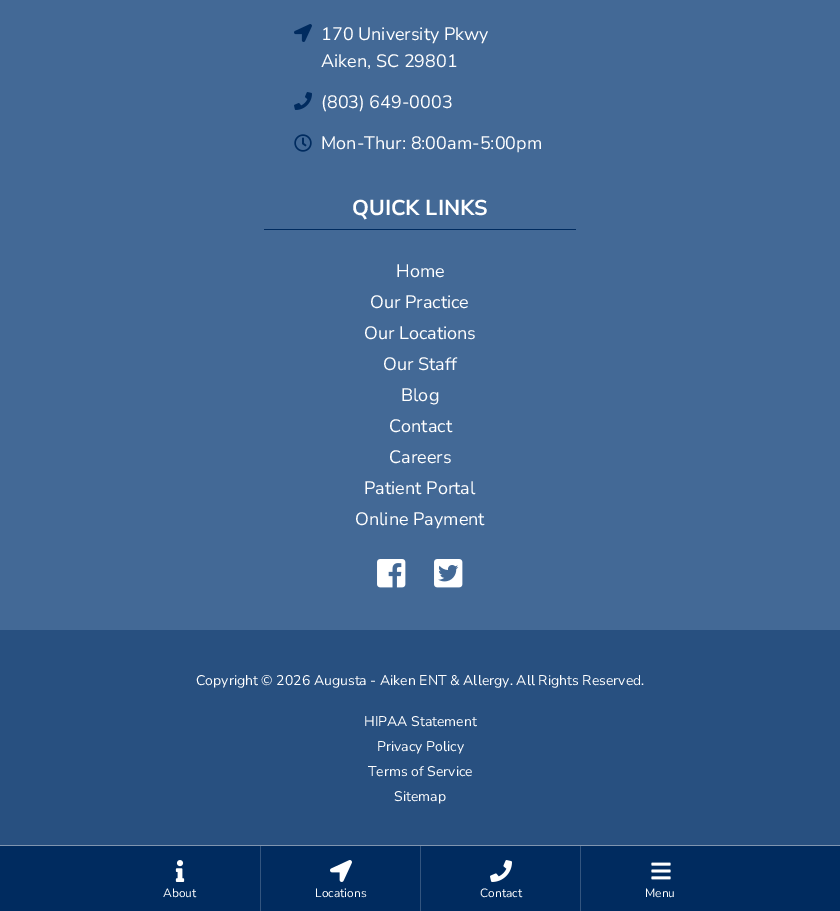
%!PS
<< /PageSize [840 911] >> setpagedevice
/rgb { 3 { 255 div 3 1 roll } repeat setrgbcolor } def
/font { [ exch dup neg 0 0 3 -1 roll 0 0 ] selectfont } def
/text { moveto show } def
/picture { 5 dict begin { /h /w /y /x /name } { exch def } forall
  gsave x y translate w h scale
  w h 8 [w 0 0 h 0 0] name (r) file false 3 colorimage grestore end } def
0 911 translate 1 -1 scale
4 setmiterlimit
67 105 150 rgb
0 0 840 911 rectfill
(img_01.rgb) 294 24 18 18 picture
(img_02.rgb) 294 92 18 18 picture
(img_03.rgb) 294 134 18 18 picture
0 43 95 rgb
264 229 312 1 rectfill
(img_04.rgb) 377 559 29 29 picture
(img_05.rgb) 434 559 29 29 picture
40 80 128 rgb
0 630 840 215 rectfill
0 43 95 rgb
0 846 840 65 rectfill
128 149 175 rgb
0 845 840 1 rectfill
(img_06.rgb) 175 860 10 22 picture
51 85 127 rgb
260 846 1 65 rectfill
(img_07.rgb) 330 860 22 22 picture
420 846 1 65 rectfill
(img_08.rgb) 490 860 22 22 picture
580 846 1 65 rectfill
(img_09.rgb) 651 862 20 18 picture
/NunitoSans-Regular 18 font
255 255 255 rgb
(170 University Pkwy) 321 40 text
(Aiken, SC 29801) 321 67 text
(\(803\) 649-0003) 321 108 text
(Mon-Thur: 8:00am-5:00pm) 321 149 text
/NunitoSans-Bold 21.5 font
(QUICK LINKS) 352 215 text
/NunitoSans-Regular 18 font
(Home) 396 277 text
(Our Practice) 370 308 text
(Our Locations) 364 339 text
(Our Staff) 383 370 text
(Blog) 401 401 text
(Contact) 389 432 text
(Careers) 389 463 text
(Patient Portal) 364 494 text
(Online Payment) 355 525 text
/NunitoSans-Regular 14 font
(Copyright © 2026 Augusta - Aiken ENT & Allergy. All Rights Reserved.) 196 685 text
(HIPAA Statement) 364 726 text
(Privacy Policy) 377 751 text
(Terms of Service) 368 776 text
(Sitemap) 394 801 text
/NunitoSans-Regular 12 font
(About) 163 897 text
(Locations) 315 897 text
(Contact) 480 897 text
(Menu) 645 897 text
showpage
